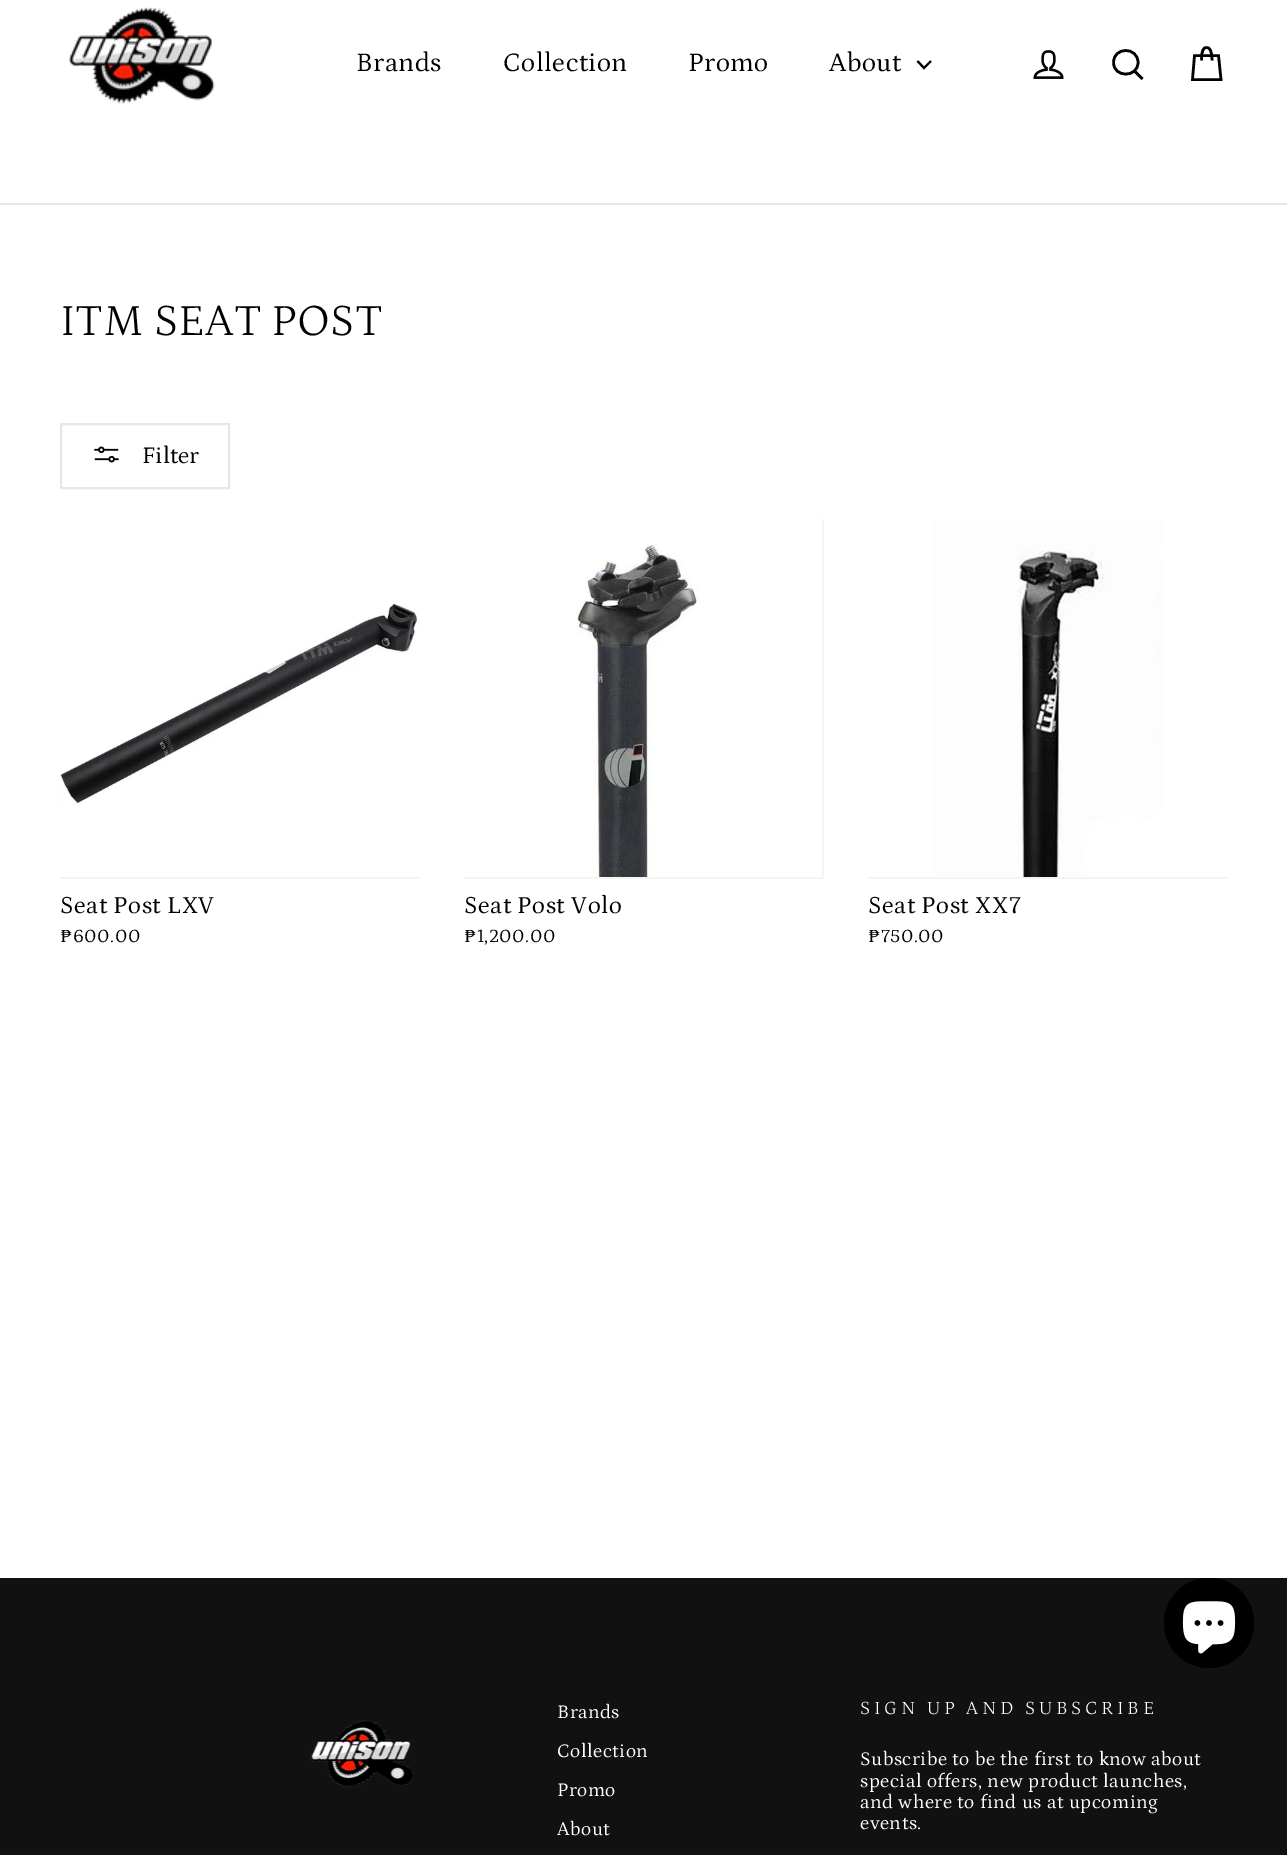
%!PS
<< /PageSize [1287 1855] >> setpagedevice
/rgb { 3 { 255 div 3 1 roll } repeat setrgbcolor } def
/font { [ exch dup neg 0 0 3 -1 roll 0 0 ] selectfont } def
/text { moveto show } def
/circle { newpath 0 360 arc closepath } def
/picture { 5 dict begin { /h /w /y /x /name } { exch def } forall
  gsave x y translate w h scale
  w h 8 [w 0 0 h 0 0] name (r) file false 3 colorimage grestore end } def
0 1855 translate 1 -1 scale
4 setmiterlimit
255 255 255 rgb
0 0 1287 1855 rectfill
232 232 225 rgb
0 203 1287 2 rectfill
(img_01.rgb) 68 7 147 97 picture
0 0 0 rgb
2.1 setlinewidth
917.5 61 moveto 6.5 7 rlineto 7 -7 rlineto stroke
(img_02.rgb) 1033 50 31 29 picture
2.6 setlinewidth
1138 62.5 moveto 0 15.5 -24.5 15.5 -24.5 0 rcurveto 0 -16 24.5 -16 24.5 0 rcurveto closepath 1142.5 79 moveto -8 -8 rlineto stroke
1201.5 60.5 moveto 0 -10.5 2 -13 5 -13 rcurveto 3 0 5.5 2.5 5.5 13 rcurveto 1194.5 55.5 moveto 24 0 rlineto 2.5 24 rlineto -28.5 0 rlineto closepath stroke
232 232 225 rgb
2 setlinewidth
61 424 168 64 rectstroke
(img_03.rgb) 94 446 25 17 picture
244 244 244 rgb
60 877 359 2 rectfill
(img_04.rgb) 60 519 359 358 picture
464 519 360 360 rectfill
(img_05.rgb) 464 519 358 358 picture
869 877 358 2 rectfill
(img_06.rgb) 869 519 358 358 picture
17 17 17 rgb
0 1578 1287 277 rectfill
(img_07.rgb) 309 1720 105 68 picture
0 0 0 rgb
1209 1623 45 circle fill
(img_08.rgb) 1182 1601 54 53 picture
/Petrona-Regular 27 font
356 71 moveto 0.5 0 (Brands) ashow
503 71 moveto 0.5 0 (Collection) ashow
688 71 moveto 0.5 0 (Promo) ashow
829 71 moveto 0.5 0 (About) ashow
/Petrona-Light 45 font
(ITM SEAT POST) 60 335 text
/Petrona-Regular 24 font
(Filter) 142 463 text
/Petrona-Regular 24.75 font
60 913 moveto 0.5 0 (Seat Post LXV) ashow
/Petrona-Regular 18.9 font
60 942 moveto 0.5 0 (₱600.00) ashow
/Petrona-Regular 24.75 font
464 913 moveto 0.5 0 (Seat Post Volo) ashow
/Petrona-Regular 18.9 font
464 942 moveto 0.5 0 (₱1,200.00) ashow
/Petrona-Regular 24.75 font
868 913 moveto 0.5 0 (Seat Post XX7) ashow
/Petrona-Regular 18.9 font
868 942 moveto 0.5 0 (₱750.00) ashow
/Petrona-Regular 19.5 font
255 255 255 rgb
557 1718 moveto 0.5 0 (Brands) ashow
557 1757 moveto 0.5 0 (Collection) ashow
557 1796 moveto 0.5 0 (Promo) ashow
557 1835 moveto 0.5 0 (About) ashow
/Petrona-Light 18.9 font
860 1714 moveto 3.75 0 (SIGN UP AND SUBSCRIBE) ashow
/Petrona-Regular 19.5 font
860 1765 moveto 0.5 0 (Subscribe to be the first to know about) ashow
860 1787 moveto 0.5 0 (special offers, new product launches,) ashow
860 1808 moveto 0.5 0 (and where to find us at upcoming) ashow
860 1829 moveto 0.5 0 (events.) ashow
showpage
